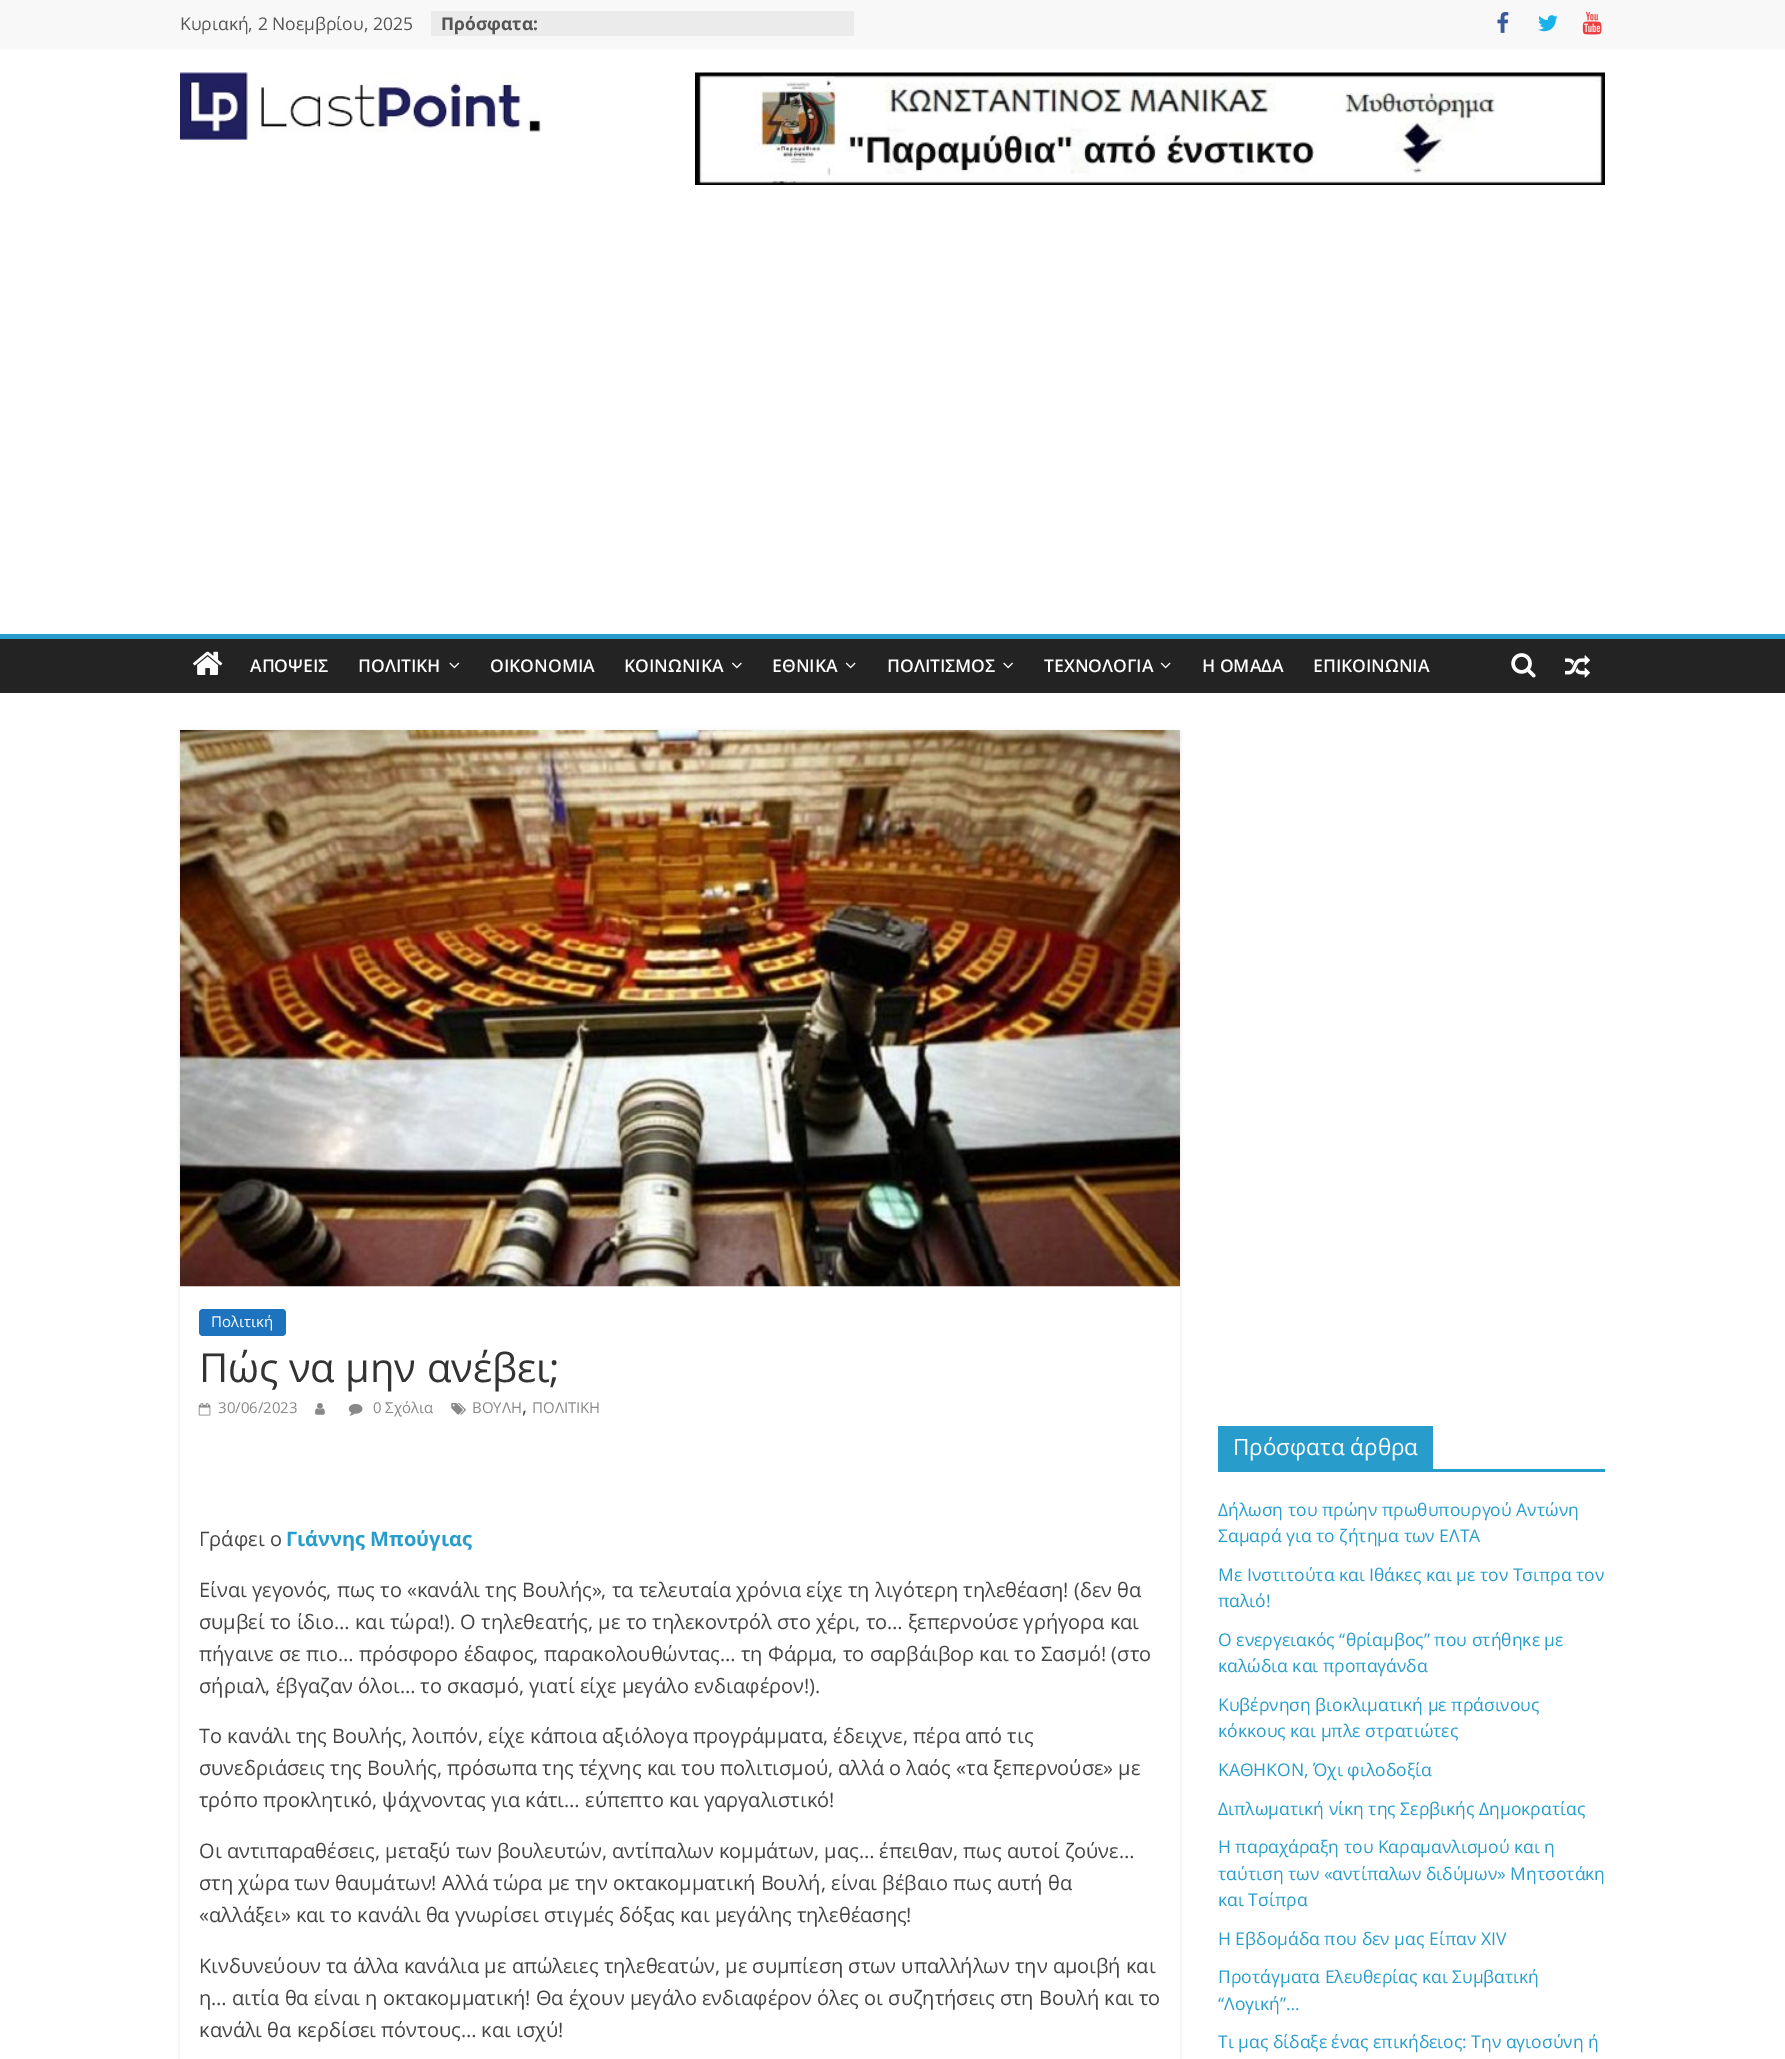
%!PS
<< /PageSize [1785 2059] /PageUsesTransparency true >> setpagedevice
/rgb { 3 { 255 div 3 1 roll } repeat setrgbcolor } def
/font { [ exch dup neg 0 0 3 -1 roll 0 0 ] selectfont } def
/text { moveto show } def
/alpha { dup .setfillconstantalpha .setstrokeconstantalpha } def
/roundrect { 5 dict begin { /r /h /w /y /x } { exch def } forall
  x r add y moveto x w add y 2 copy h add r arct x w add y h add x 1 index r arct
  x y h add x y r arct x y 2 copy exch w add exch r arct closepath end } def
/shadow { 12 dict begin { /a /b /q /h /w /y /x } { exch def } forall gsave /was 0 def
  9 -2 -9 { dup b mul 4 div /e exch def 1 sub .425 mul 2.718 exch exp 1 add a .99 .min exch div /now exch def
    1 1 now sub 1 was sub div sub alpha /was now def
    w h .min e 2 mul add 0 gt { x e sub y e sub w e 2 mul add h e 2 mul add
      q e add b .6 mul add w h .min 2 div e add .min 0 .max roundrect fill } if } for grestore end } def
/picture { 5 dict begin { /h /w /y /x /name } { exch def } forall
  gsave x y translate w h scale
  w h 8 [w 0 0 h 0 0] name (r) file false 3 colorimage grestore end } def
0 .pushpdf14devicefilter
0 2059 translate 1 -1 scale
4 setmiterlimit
255 255 255 rgb
0 0 1785 2059 rectfill
0 0 0 rgb
0 0 1785 48 0 1 0.1 shadow
248 248 248 rgb
0 0 1785 48 rectfill
235 235 236 rgb
431 11 423 25 rectfill
(img_01.rgb) 1497 12 12 21 picture
(img_02.rgb) 1538 15 20 17 picture
(img_03.rgb) 1582 11 20 24 picture
(img_04.rgb) 180 72 361 68 picture
(img_05.rgb) 695 72 910 113 picture
35 35 35 rgb
0 639 1785 54 rectfill
40 157 204 rgb
0 634 1785 5 rectfill
(img_06.rgb) 193 651 30 24 picture
(img_07.rgb) 449 662 11 7 picture
(img_08.rgb) 732 662 10 7 picture
(img_09.rgb) 845 662 11 7 picture
(img_10.rgb) 1003 662 10 7 picture
(img_09.rgb) 1160 662 11 7 picture
(img_11.rgb) 1511 653 25 25 picture
(img_12.rgb) 1565 655 25 23 picture
gsave
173 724 moveto 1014 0 rlineto 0 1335 rlineto -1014 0 rlineto closepath 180 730 moveto 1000 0 rlineto 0 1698 rlineto -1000 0 rlineto closepath eoclip newpath
0 0 0 rgb
180 731 1000 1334 0 2 0.1 shadow
grestore
(img_13.rgb) 180 730 1000 557 picture
30 115 190 rgb
199 1309 87 27 4 roundrect fill
(img_14.rgb) 198 1403 13 13 picture
(img_15.rgb) 315 1403 10 12 picture
(img_16.rgb) 348 1403 15 13 picture
(img_17.rgb) 451 1402 15 13 picture
40 157 204 rgb
1218 1469 387 3 rectfill
1218 1426 215 43 rectfill
/OpenSans-Regular 17.5 font
85 85 85 rgb
(Κυριακή, 2 Νοεμβρίου, 2025) 180 30 text
/OpenSans-Bold 17.5 font
(Πρόσφατα:) 441 30 text
/OpenSans-SemiBold 17.5 font
255 255 255 rgb
(ΑΠΟΨΕΙΣ) 250 672 text
(ΠΟΛΙΤΙΚΗ) 358 672 text
(ΟΙΚΟΝΟΜΙΑ) 490 672 text
(ΚΟΙΝΩΝΙΚΑ) 624 672 text
(ΕΘΝΙΚΑ) 772 672 text
(ΠΟΛΙΤΙΣΜΟΣ) 887 672 text
(ΤΕΧΝΟΛΟΓΙΑ) 1044 672 text
(Η ΟΜΑΔΑ) 1202 672 text
(ΕΠΙΚΟΙΝΩΝΙΑ) 1313 672 text
/OpenSans-Regular 15 font
(Πολιτική) 211 1327 text
/OpenSans-Regular 40 font
51 51 51 rgb
(Πώς να μην ανέβει;) 199 1382 text
/OpenSans-Regular 15 font
136 136 136 rgb
(30/06/2023) 218 1413 text
(0 Σχόλια) 373 1413 text
(ΒΟΥΛΗ) 472 1413 text
/OpenSans-Regular 20 font
68 68 68 rgb
(,) 522 1413 text
/OpenSans-Regular 15 font
136 136 136 rgb
(ΠΟΛΙΤΙΚΗ) 532 1413 text
/OpenSans-Regular 20 font
68 68 68 rgb
(Γράφει ο) 199 1546 text
/OpenSans-Bold 20 font
40 157 204 rgb
(Γιάννης Μπούγιας) 286 1546 text
/OpenSans-Regular 20 font
68 68 68 rgb
(Είναι γεγονός, πως το «κανάλι της Βουλής», τα τελευταία χρόνια είχε τη λιγότερη τηλεθέαση! \(δεν θα) 199 1597 text
(συμβεί το ίδιο… και τώρα!\). Ο τηλεθεατής, με το τηλεκοντρόλ στο χέρι, το… ξεπερνούσε γρήγορα και) 199 1629 text
(πήγαινε σε πιο… πρόσφορο έδαφος, παρακολουθώντας… τη Φάρμα, το σαρβάιβορ και το Σασμό! \(στο) 199 1661 text
(σήριαλ, έβγαζαν όλοι… το σκασμό, γιατί είχε μεγάλο ενδιαφέρον!\).) 199 1693 text
(Το κανάλι της Βουλής, λοιπόν, είχε κάποια αξιόλογα προγράμματα, έδειχνε, πέρα από τις) 199 1743 text
(συνεδριάσεις της Βουλής, πρόσωπα της τέχνης και του πολιτισμού, αλλά ο λαός «τα ξεπερνούσε» με) 199 1775 text
(τρόπο προκλητικό, ψάχνοντας για κάτι… εύπεπτο και γαργαλιστικό!) 199 1807 text
(Οι αντιπαραθέσεις, μεταξύ των βουλευτών, αντίπαλων κομμάτων, μας… έπειθαν, πως αυτοί ζούνε…) 199 1858 text
(στη χώρα των θαυμάτων! Αλλά τώρα με την οκτακομματική Βουλή, είναι βέβαιο πως αυτή θα) 199 1890 text
(«αλλάξει» και το κανάλι θα γνωρίσει στιγμές δόξας και μεγάλης τηλεθέασης!) 199 1922 text
(Κινδυνεύουν τα άλλα κανάλια με απώλειες τηλεθεατών, με συμπίεση στων υπαλλήλων την αμοιβή και) 199 1973 text
(η… αιτία θα είναι η οκτακομματική! Θα έχουν μεγάλο ενδιαφέρον όλες οι συζητήσεις στη Βουλή και το) 199 2005 text
(κανάλι θα κερδίσει πόντους… και ισχύ!) 199 2037 text
/OpenSans-Regular 22.5 font
255 255 255 rgb
(Πρόσφατα άρθρα) 1233 1455 text
/OpenSans-Regular 17.5 font
40 157 204 rgb
(Δήλωση του πρώην πρωθυπουργού Αντώνη) 1218 1516 text
(Σαμαρά για το ζήτημα των ΕΛΤΑ) 1218 1542 text
(Με Ινστιτούτα και Ιθάκες και με τον Τσιπρα τον) 1218 1581 text
(παλιό!) 1218 1607 text
(Ο ενεργειακός “θρίαμβος” που στήθηκε με) 1218 1646 text
(καλώδια και προπαγάνδα) 1218 1672 text
(Κυβέρνηση βιοκλιματική με πράσινους) 1218 1711 text
(κόκκους και μπλε στρατιώτες) 1218 1737 text
(ΚΑΘΗΚΟΝ, Όχι φιλοδοξία) 1218 1776 text
(Διπλωματική νίκη της Σερβικής Δημοκρατίας) 1218 1815 text
(Η παραχάραξη του Καραμανλισμού και η) 1218 1853 text
(ταύτιση των «αντίπαλων διδύμων» Μητσοτάκη) 1218 1880 text
(και Τσίπρα) 1218 1906 text
(Η Εβδομάδα που δεν μας Είπαν XIV) 1218 1945 text
(Προτάγματα Ελευθερίας και Συμβατική) 1218 1983 text
(“Λογική”…) 1218 2010 text
(Τι μας δίδαξε ένας επικήδειος: Την αγιοσύνη ή) 1218 2048 text
.poppdf14devicefilter showpage
